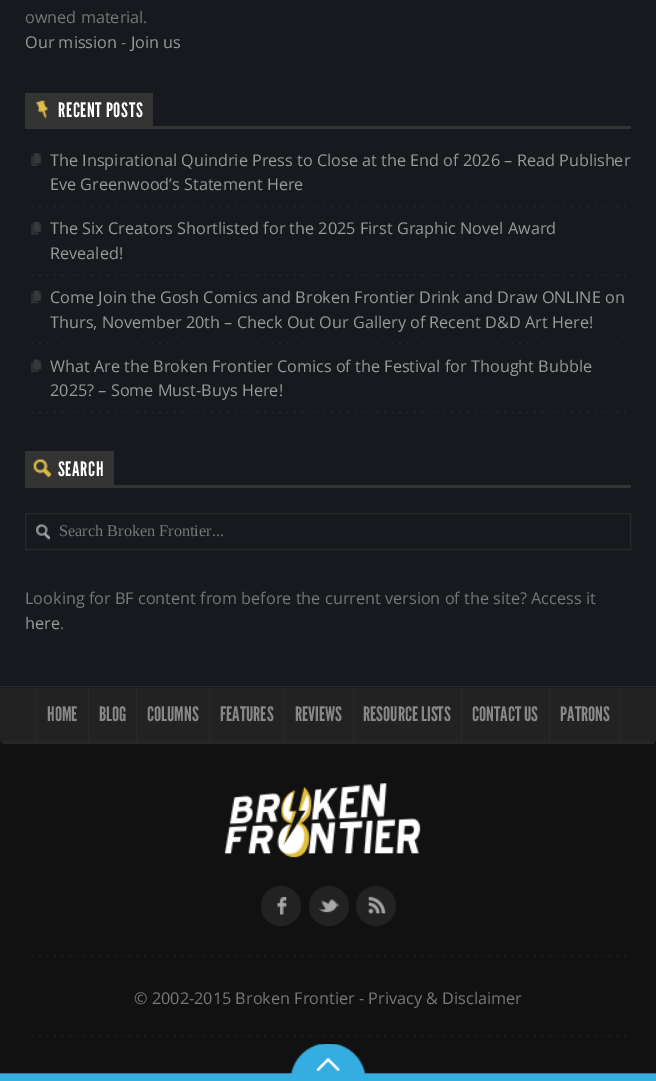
%!PS
<< /PageSize [656 1081] >> setpagedevice
/rgb { 3 { 255 div 3 1 roll } repeat setrgbcolor } def
/font { [ exch dup neg 0 0 3 -1 roll 0 0 ] selectfont } def
/text { moveto show } def
/circle { newpath 0 360 arc closepath } def
/picture { 5 dict begin { /h /w /y /x /name } { exch def } forall
  gsave x y translate w h scale
  w h 8 [w 0 0 h 0 0] name (r) file false 3 colorimage grestore end } def
0 1081 translate 1 -1 scale
4 setmiterlimit
22 25 29 rgb
0 0 656 1081 rectfill
41 41 41 rgb
0 686 656 1 rectfill
51 51 51 rgb
25 126 606 3 rectfill
25 93 128 33 rectfill
(img_01.rgb) 36 100 12 19 picture
(img_02.rgb) 25 205 601 2 picture
(img_03.rgb) 31 153 11 13 picture
(img_04.rgb) 25 274 601 2 picture
(img_05.rgb) 31 222 11 13 picture
(img_06.rgb) 25 343 601 2 picture
(img_07.rgb) 31 290 11 14 picture
(img_08.rgb) 25 412 601 2 picture
(img_09.rgb) 31 359 11 13 picture
25 485 606 3 rectfill
25 451 89 34 rectfill
(img_10.rgb) 33 459 19 19 picture
(img_11.rgb) 36 524 14 16 picture
41 41 41 rgb
25.5 513.5 605 36 rectstroke
17 17 17 rgb
0 739 656 305 rectfill
34 34 34 rgb
0 688 moveto 656 0 rlineto 0 51 rlineto 0 3 -2 5 -5 5 rcurveto -646 0 rlineto -3 0 -5 -2 -5 -5 rcurveto closepath fill
(img_12.rgb) 2 741 653 1 picture
41 41 41 rgb
3 743 651 1 rectfill
88 688 1 55 rectfill
35 688 1 55 rectfill
136 688 1 55 rectfill
209 688 1 55 rectfill
284 688 1 55 rectfill
353 688 1 55 rectfill
461 688 1 55 rectfill
549 688 1 55 rectfill
620 688 1 55 rectfill
(img_13.rgb) 25 955 601 2 picture
(img_14.rgb) 224 783 197 75 picture
34 34 34 rgb
281 906 20 circle fill
(img_15.rgb) 277 896 10 19 picture
329 906 20 circle fill
(img_16.rgb) 318 899 21 14 picture
376 906 20 circle fill
(img_17.rgb) 368 896 18 18 picture
(img_13.rgb) 25 1035 601 2 picture
53 173 224 rgb
0 1044 656 37 rectfill
(img_18.rgb) 0 1044 656 30 picture
/OpenSans-Regular 16.25 font
119 119 119 rgb
(owned material.) 25 23 text
153 153 153 rgb
(Our mission) 25 48 text
119 119 119 rgb
(-) 121 48 text
153 153 153 rgb
(Join us) 131 48 text
/LeagueGothic-Regular 20 font
255 255 255 rgb
58 117 moveto 0.6 0 (RECENT POSTS) ashow
/OpenSans-Regular 16.25 font
153 153 153 rgb
(The Inspirational Quindrie Press to Close at the End of 2026 – Read Publisher) 50 166 text
(Eve Greenwood’s Statement Here) 50 190 text
(The Six Creators Shortlisted for the 2025 First Graphic Novel Award) 50 234 text
(Revealed!) 50 259 text
(Come Join the Gosh Comics and Broken Frontier Drink and Draw ONLINE on) 50 303 text
(Thurs, November 20th – Check Out Our Gallery of Recent D&D Art Here!) 50 328 text
(What Are the Broken Frontier Comics of the Festival for Thought Bubble) 50 372 text
(2025? – Some Must-Buys Here!) 50 396 text
/LeagueGothic-Regular 20 font
255 255 255 rgb
58 476 moveto 0.6 0 (SEARCH) ashow
/LiberationSerif-Regular 16.25 font
119 119 119 rgb
(Search Broken Frontier...) 59 536 text
/OpenSans-Regular 16.25 font
(Looking for BF content from before the current version of the site? Access it) 25 604 text
153 153 153 rgb
(here) 25 629 text
119 119 119 rgb
(.) 60 629 text
/LeagueGothic-Regular 20 font
136 136 136 rgb
(HOME) 47 721 text
(BLOG) 99 721 text
(COLUMNS) 147 721 text
(FEATURES) 220 721 text
(REVIEWS) 295 721 text
(RESOURCE LISTS) 363 721 text
(CONTACT US) 472 721 text
(PATRONS) 560 721 text
/OpenSans-Regular 16.25 font
119 119 119 rgb
(© 2002-2015 Broken Frontier - Privacy & Disclaimer) 134 1004 text
showpage
